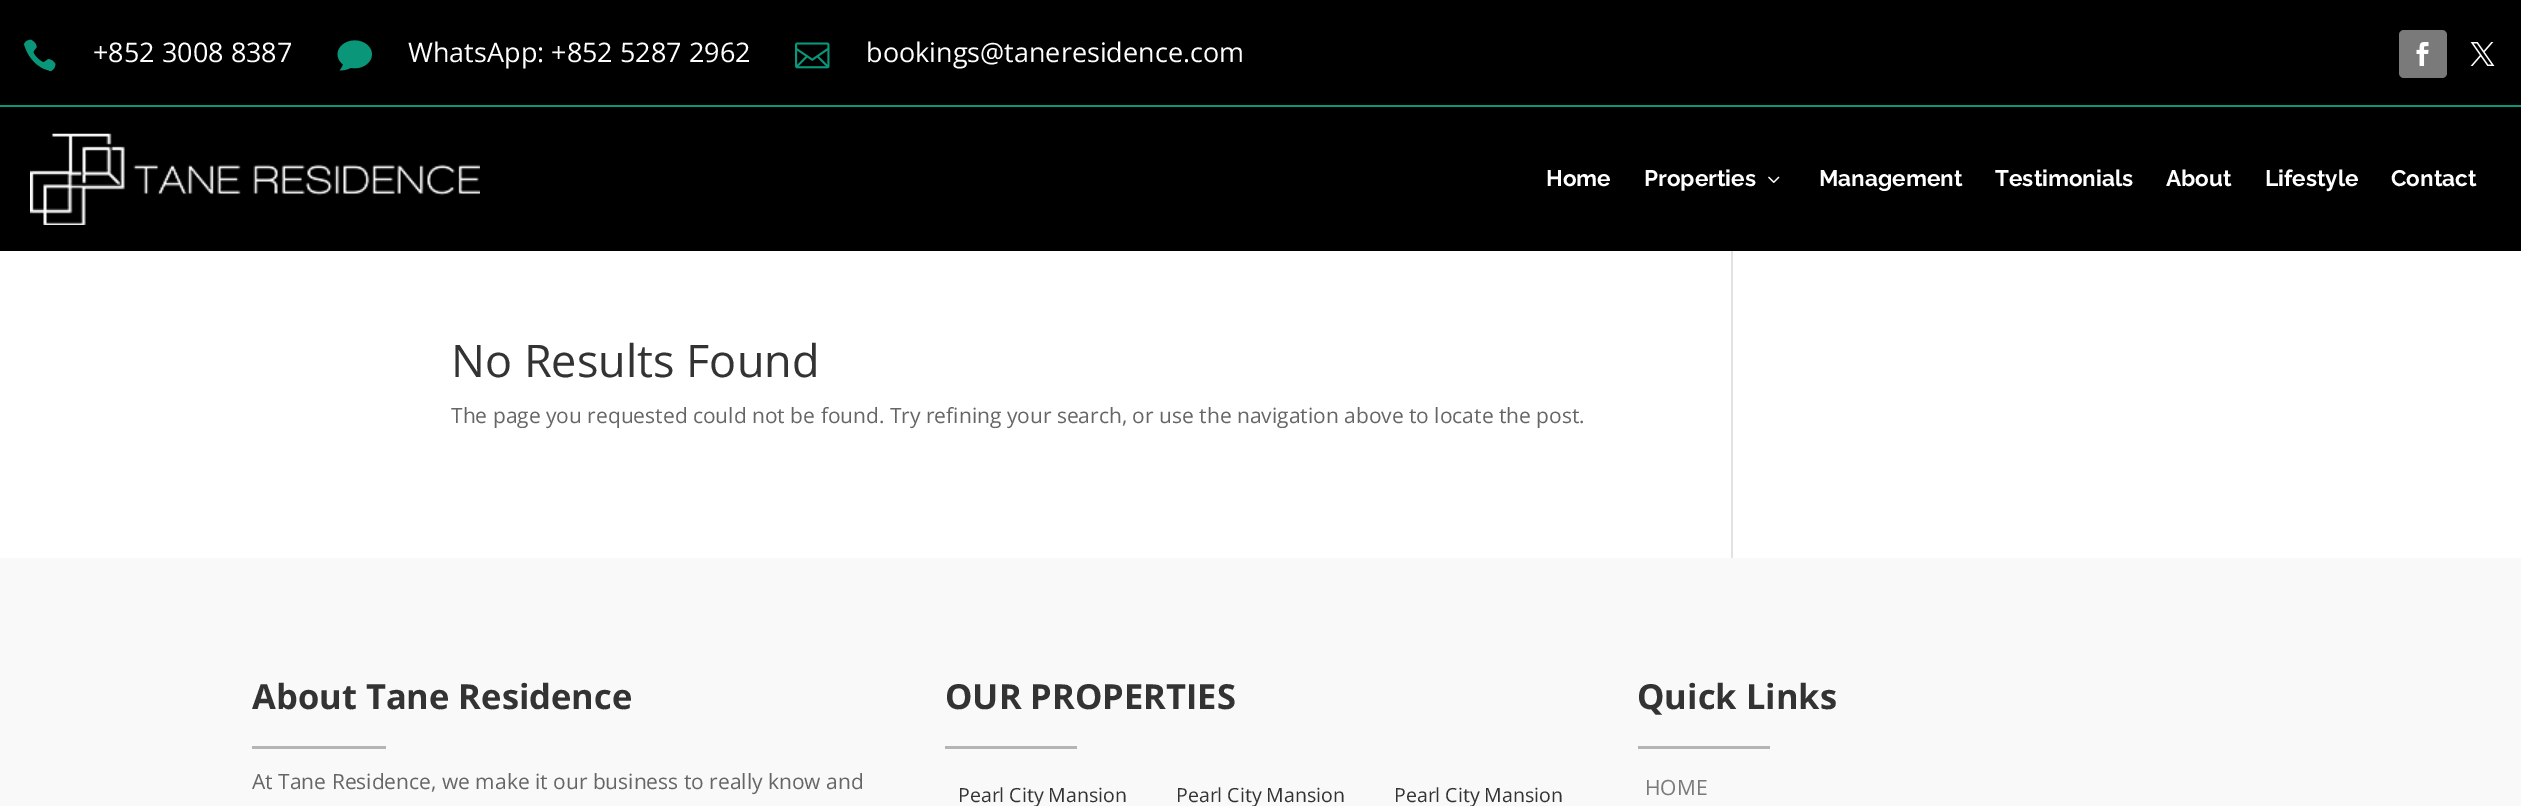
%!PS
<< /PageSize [2521 806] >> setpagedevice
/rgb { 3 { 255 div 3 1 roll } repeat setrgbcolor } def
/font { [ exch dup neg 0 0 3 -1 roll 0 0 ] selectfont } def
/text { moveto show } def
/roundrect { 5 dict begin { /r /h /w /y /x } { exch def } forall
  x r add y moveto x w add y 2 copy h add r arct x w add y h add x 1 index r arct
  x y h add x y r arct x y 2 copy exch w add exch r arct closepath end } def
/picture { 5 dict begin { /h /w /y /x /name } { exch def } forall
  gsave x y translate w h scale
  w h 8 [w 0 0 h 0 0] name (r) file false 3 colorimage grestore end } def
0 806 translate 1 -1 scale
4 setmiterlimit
255 255 255 rgb
0 0 2521 806 rectfill
0 0 0 rgb
0 0 2521 105 rectfill
9 150 121 rgb
0 105 2521 2 rectfill
(img_01.rgb) 23 39 33 33 picture
(img_02.rgb) 337 40 35 31 picture
(img_03.rgb) 795 42 35 27 picture
122 122 122 rgb
2399 30 48 48 5 roundrect fill
(img_04.rgb) 2416 42 13 24 picture
(img_05.rgb) 2470 42 25 24 picture
0 0 0 rgb
0 107 2521 144 rectfill
(img_06.rgb) 30 133 450 92 picture
(img_07.rgb) 1768 176 12 7 picture
226 226 226 rgb
1731 251 2 307 rectfill
249 249 249 rgb
0 558 2521 248 rectfill
181 181 181 rgb
252 746 134 3 rectfill
945 746 132 3 rectfill
1638 746 132 3 rectfill
/OpenSans-Regular 27 font
255 255 255 rgb
(+852 3008 8387) 93 62 text
(WhatsApp: +852 5287 2962) 408 62 text
(bookings@taneresidence.com) 866 62 text
/Raleway-Bold 22.5 font
(Home) 1546 186 text
(Properties) 1644 186 text
(Management) 1819 186 text
(Testimonials) 1995 186 text
(About) 2166 186 text
(Lifestyle) 2265 186 text
(Contact) 2391 186 text
/OpenSans-Regular 45 font
51 51 51 rgb
(No Results Found) 451 377 text
/OpenSans-Regular 21 font
102 102 102 rgb
(The page you requested could not be found. Try refining your search, or use the navigation above to locate the post.) 451 423 text
/OpenSans-Bold 34.5 font
51 51 51 rgb
(About Tane Residence) 252 709 text
/OpenSans-Regular 21 font
102 102 102 rgb
(At Tane Residence, we make it our business to really know and) 252 789 text
/OpenSans-Bold 34.5 font
51 51 51 rgb
(OUR PROPERTIES) 945 709 text
/OpenSans-Regular 19.5 font
(Pearl City Mansion) 958 802 text
(Pearl City Mansion) 1176 802 text
(Pearl City Mansion) 1394 802 text
/OpenSans-Bold 34.5 font
(Quick Links) 1637 709 text
/OpenSans-Regular 21 font
122 122 122 rgb
(HOME) 1645 795 text
showpage
